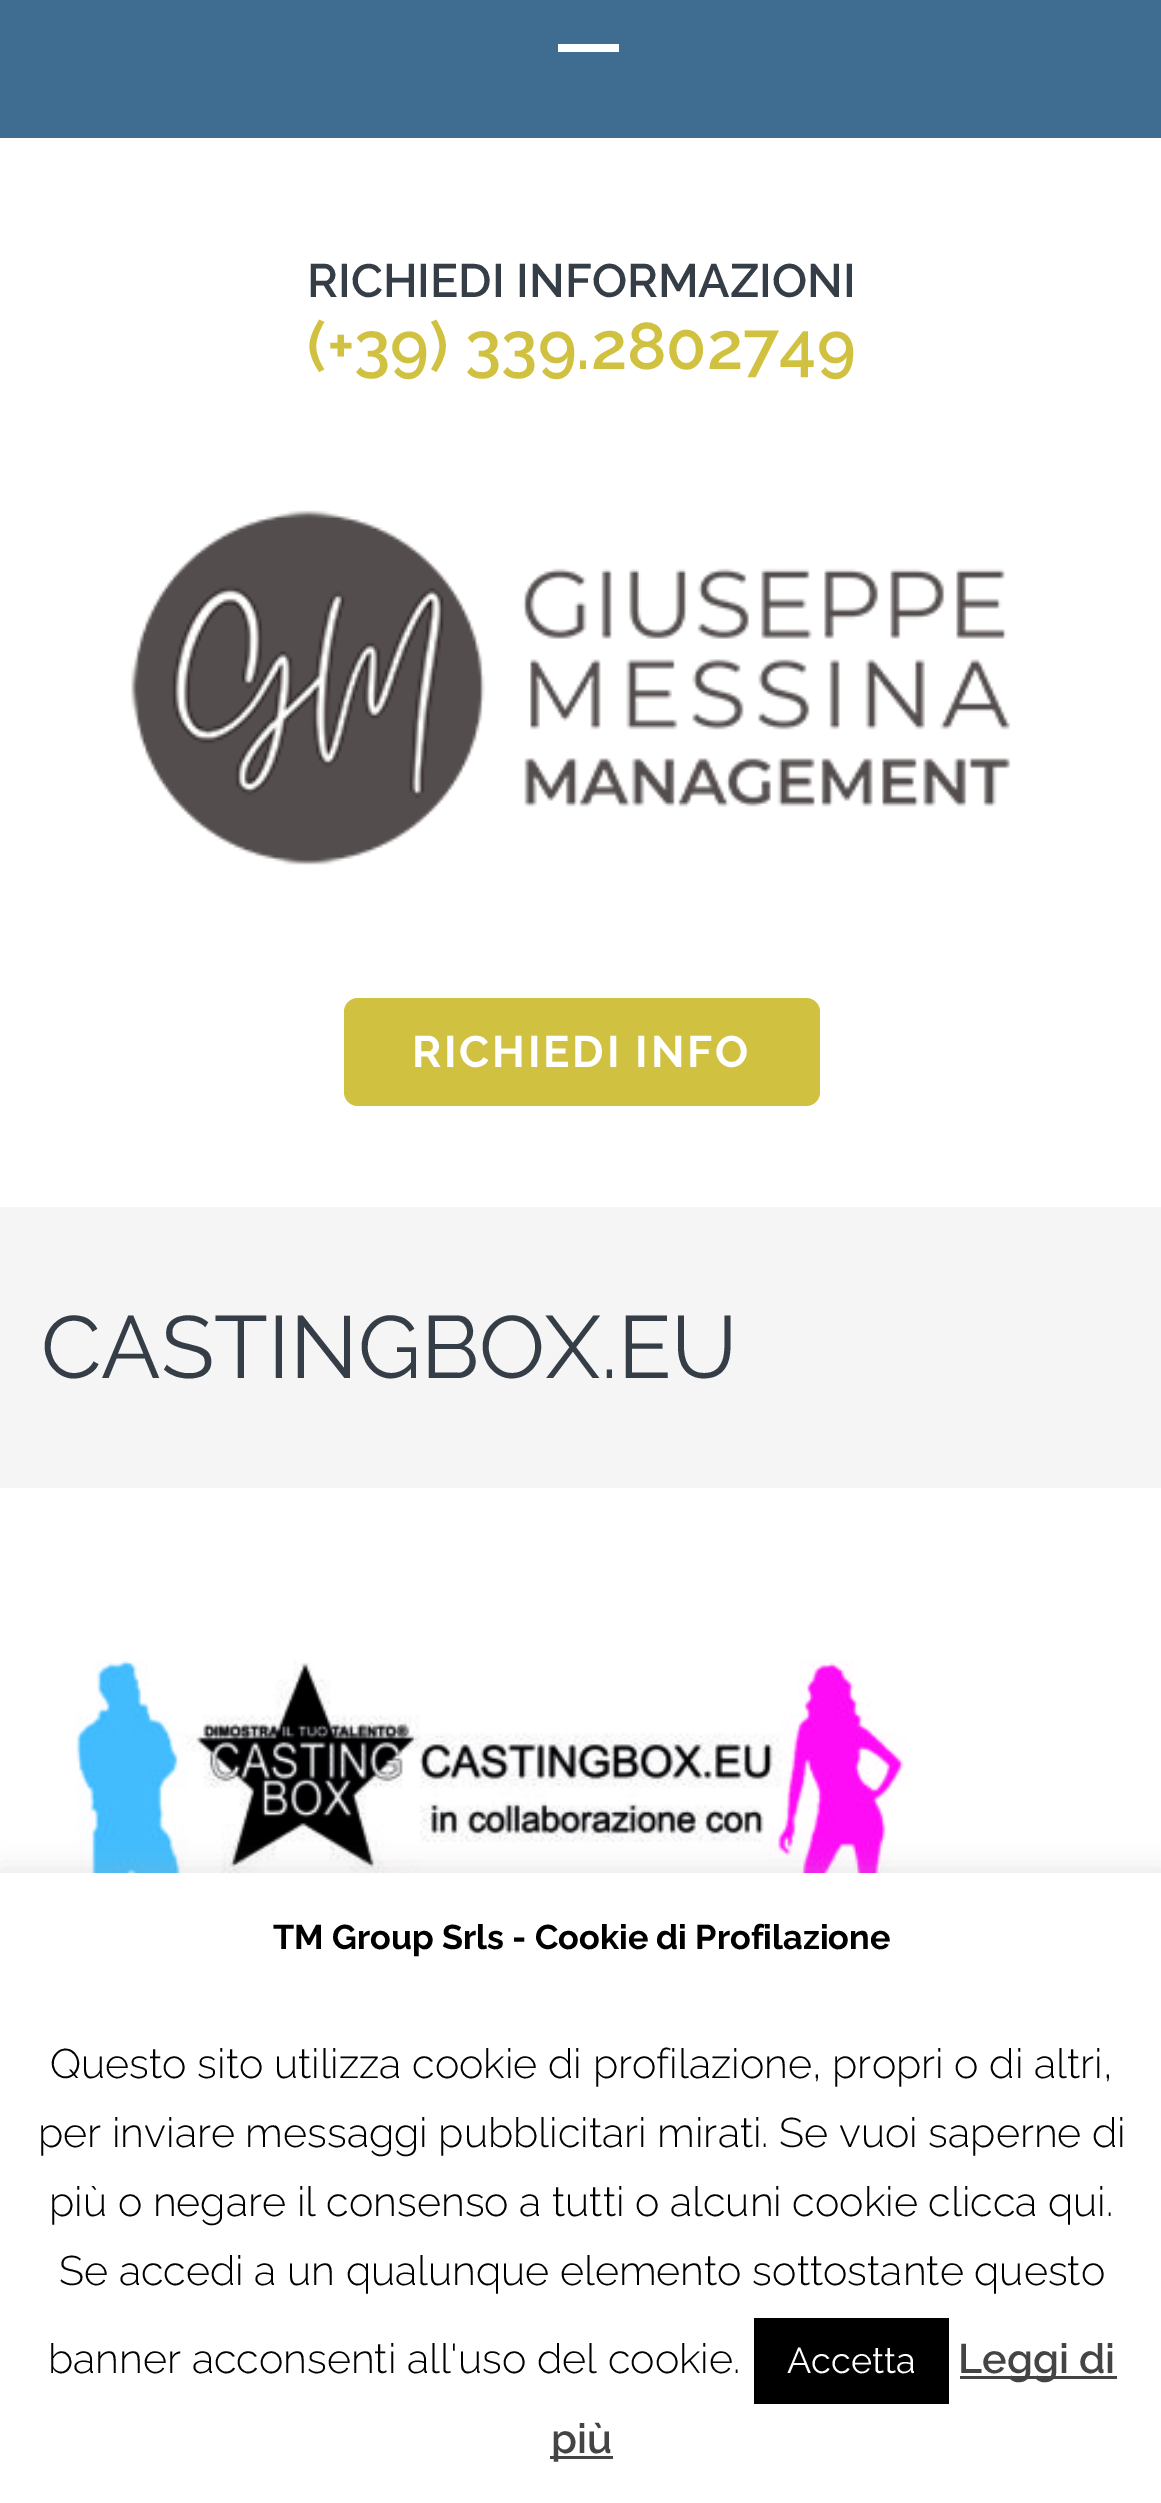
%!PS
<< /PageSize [1161 2503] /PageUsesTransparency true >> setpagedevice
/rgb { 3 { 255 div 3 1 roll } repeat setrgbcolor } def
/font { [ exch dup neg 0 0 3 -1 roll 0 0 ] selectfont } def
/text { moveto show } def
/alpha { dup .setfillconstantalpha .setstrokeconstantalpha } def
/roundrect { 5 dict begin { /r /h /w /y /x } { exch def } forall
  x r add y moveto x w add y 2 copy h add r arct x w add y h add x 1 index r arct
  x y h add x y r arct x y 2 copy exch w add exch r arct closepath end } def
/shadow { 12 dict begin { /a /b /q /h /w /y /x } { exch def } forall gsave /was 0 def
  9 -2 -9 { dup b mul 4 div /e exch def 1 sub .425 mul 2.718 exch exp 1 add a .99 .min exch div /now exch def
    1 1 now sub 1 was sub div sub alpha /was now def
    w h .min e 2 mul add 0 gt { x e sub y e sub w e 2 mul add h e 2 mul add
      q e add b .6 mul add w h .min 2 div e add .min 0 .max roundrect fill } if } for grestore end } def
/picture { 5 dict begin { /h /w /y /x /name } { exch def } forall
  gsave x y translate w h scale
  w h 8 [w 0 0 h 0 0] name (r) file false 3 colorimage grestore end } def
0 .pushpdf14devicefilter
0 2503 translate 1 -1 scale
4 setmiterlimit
255 255 255 rgb
0 0 1161 2503 rectfill
63 108 145 rgb
0 0 1161 138 rectfill
255 255 255 rgb
558 44 61 8 rectfill
(img_01.rgb) 131 510 880 355 picture
208 193 65 rgb
344 998 476 108 14 roundrect fill
245 245 245 rgb
0 1207 1161 281 rectfill
(img_02.rgb) 59 1660 864 213 picture
172 171 171 rgb
0 1870 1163 633 0 14 0.3 shadow
255 255 255 rgb
0 1873 1161 630 rectfill
0 0 0 rgb
754 2318 195 86 rectfill
68 68 68 rgb
960 2376 157 3 rectfill
550 2456 63 3 rectfill
/Raleway-SemiBold 46.75 font
53 61 71 rgb
(RICHIEDI INFORMAZIONI) 307 297 text
/Raleway-SemiBold 66 font
208 193 65 rgb
(\(+39\) 339.2802749) 307 369 text
/Raleway-Bold 44 font
255 255 255 rgb
412 1067 moveto 2.75 0 (RICHIEDI INFO) ashow
/Raleway-Regular 88 font
53 61 71 rgb
(CASTINGBOX.EU) 41 1378 text
/Raleway-Bold 34.25 font
0 0 0 rgb
(TM Group Srls - Cookie di Profilazione) 273 1949 text
/Raleway-Light 41.25 font
(Questo sito utilizza cookie di profilazione, propri o di altri,) 50 2078 text
(per inviare messaggi pubblicitari mirati. Se vuoi saperne di) 38 2147 text
(più o negare il consenso a tutti o alcuni cookie clicca qui.) 49 2216 text
(Se accedi a un qualunque elemento sottostante questo) 59 2285 text
(banner acconsenti all'uso del cookie.) 48 2373 text
/Raleway-Regular 36 font
255 255 255 rgb
(Accetta) 787 2373 text
/Raleway-SemiBold 41.25 font
68 68 68 rgb
(Leggi di) 958 2373 text
(più) 551 2453 text
.poppdf14devicefilter showpage
